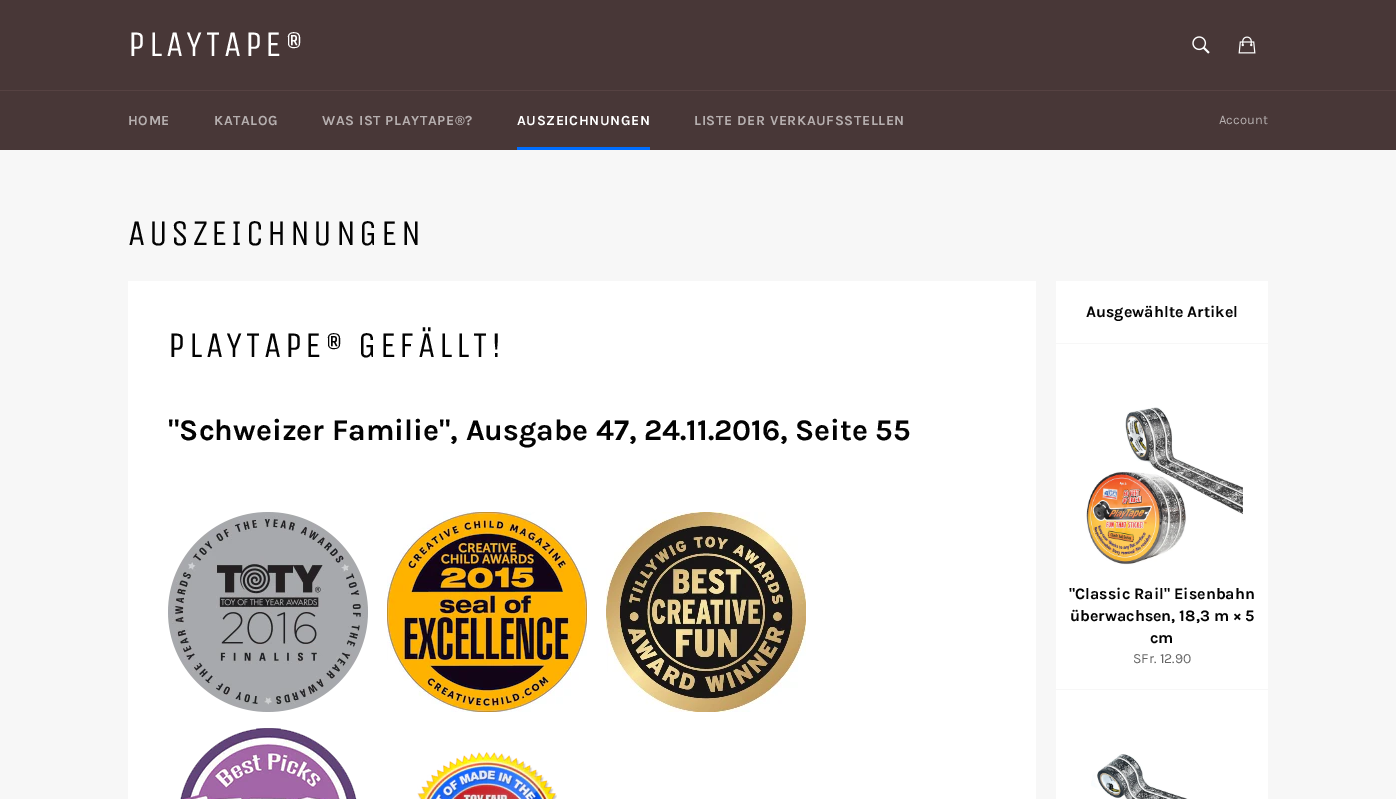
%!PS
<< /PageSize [1396 799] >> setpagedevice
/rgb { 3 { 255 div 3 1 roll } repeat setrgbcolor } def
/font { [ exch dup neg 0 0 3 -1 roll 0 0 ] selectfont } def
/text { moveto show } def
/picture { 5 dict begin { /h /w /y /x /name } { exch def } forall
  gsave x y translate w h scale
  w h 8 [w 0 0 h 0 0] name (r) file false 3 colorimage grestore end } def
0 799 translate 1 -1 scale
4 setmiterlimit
247 247 247 rgb
0 0 1396 799 rectfill
72 55 55 rgb
0 0 1396 90 rectfill
(img_01.rgb) 1192 36 18 18 picture
(img_02.rgb) 1238 36 18 18 picture
0 91 1396 59 rectfill
86 66 66 rgb
0 90 1396 1 rectfill
0 110 255 rgb
517 147 133 3 rectfill
255 255 255 rgb
128 281 908 518 rectfill
(img_03.rgb) 168 512 200 200 picture
(img_04.rgb) 387 512 200 200 picture
(img_05.rgb) 606 512 200 200 picture
(img_06.rgb) 180 728 177 71 picture
(img_07.rgb) 417 752 140 47 picture
1056 281 212 518 rectfill
247 247 247 rgb
1056 343 212 1 rectfill
1056 689 212 1 rectfill
(img_08.rgb) 1086 407 157 158 picture
(img_09.rgb) 1091 754 97 45 picture
/UnicaOne-Regular 36 font
255 255 255 rgb
128 56 moveto 3.6 0 (PLAYTAPE®) ashow
/Karla-Bold 14 font
182 175 175 rgb
128 125 moveto 0.6 0 (HOME) ashow
214 125 moveto 0.6 0 (KATALOG) ashow
322 125 moveto 0.6 0 (WAS IST PLAYTAPE®?) ashow
255 255 255 rgb
517 125 moveto 0.6 0 (AUSZEICHNUNGEN) ashow
182 175 175 rgb
694 125 moveto 0.6 0 (LISTE DER VERKAUFSSTELLEN) ashow
/Karla-Regular 13 font
(Account) 1219 124 text
/UnicaOne-Regular 36 font
3 3 3 rgb
128 245 moveto 3.6 0 (AUSZEICHNUNGEN) ashow
168 357 moveto 3.6 0 (PLAYTAPE® GEFÄLLT!) ashow
/Karla-Bold 30 font
("Schweizer Familie", Ausgabe 47, 24.11.2016, Seite 55) 168 440 text
/Karla-Bold 16 font
(Ausgewählte Artikel) 1086 317 text
("Classic Rail" Eisenbahn) 1069 599 text
(überwachsen, 18,3 m × 5) 1070 621 text
(cm) 1150 643 text
/Karla-Regular 14 font
102 102 102 rgb
(SFr. 12.90) 1133 663 text
showpage
